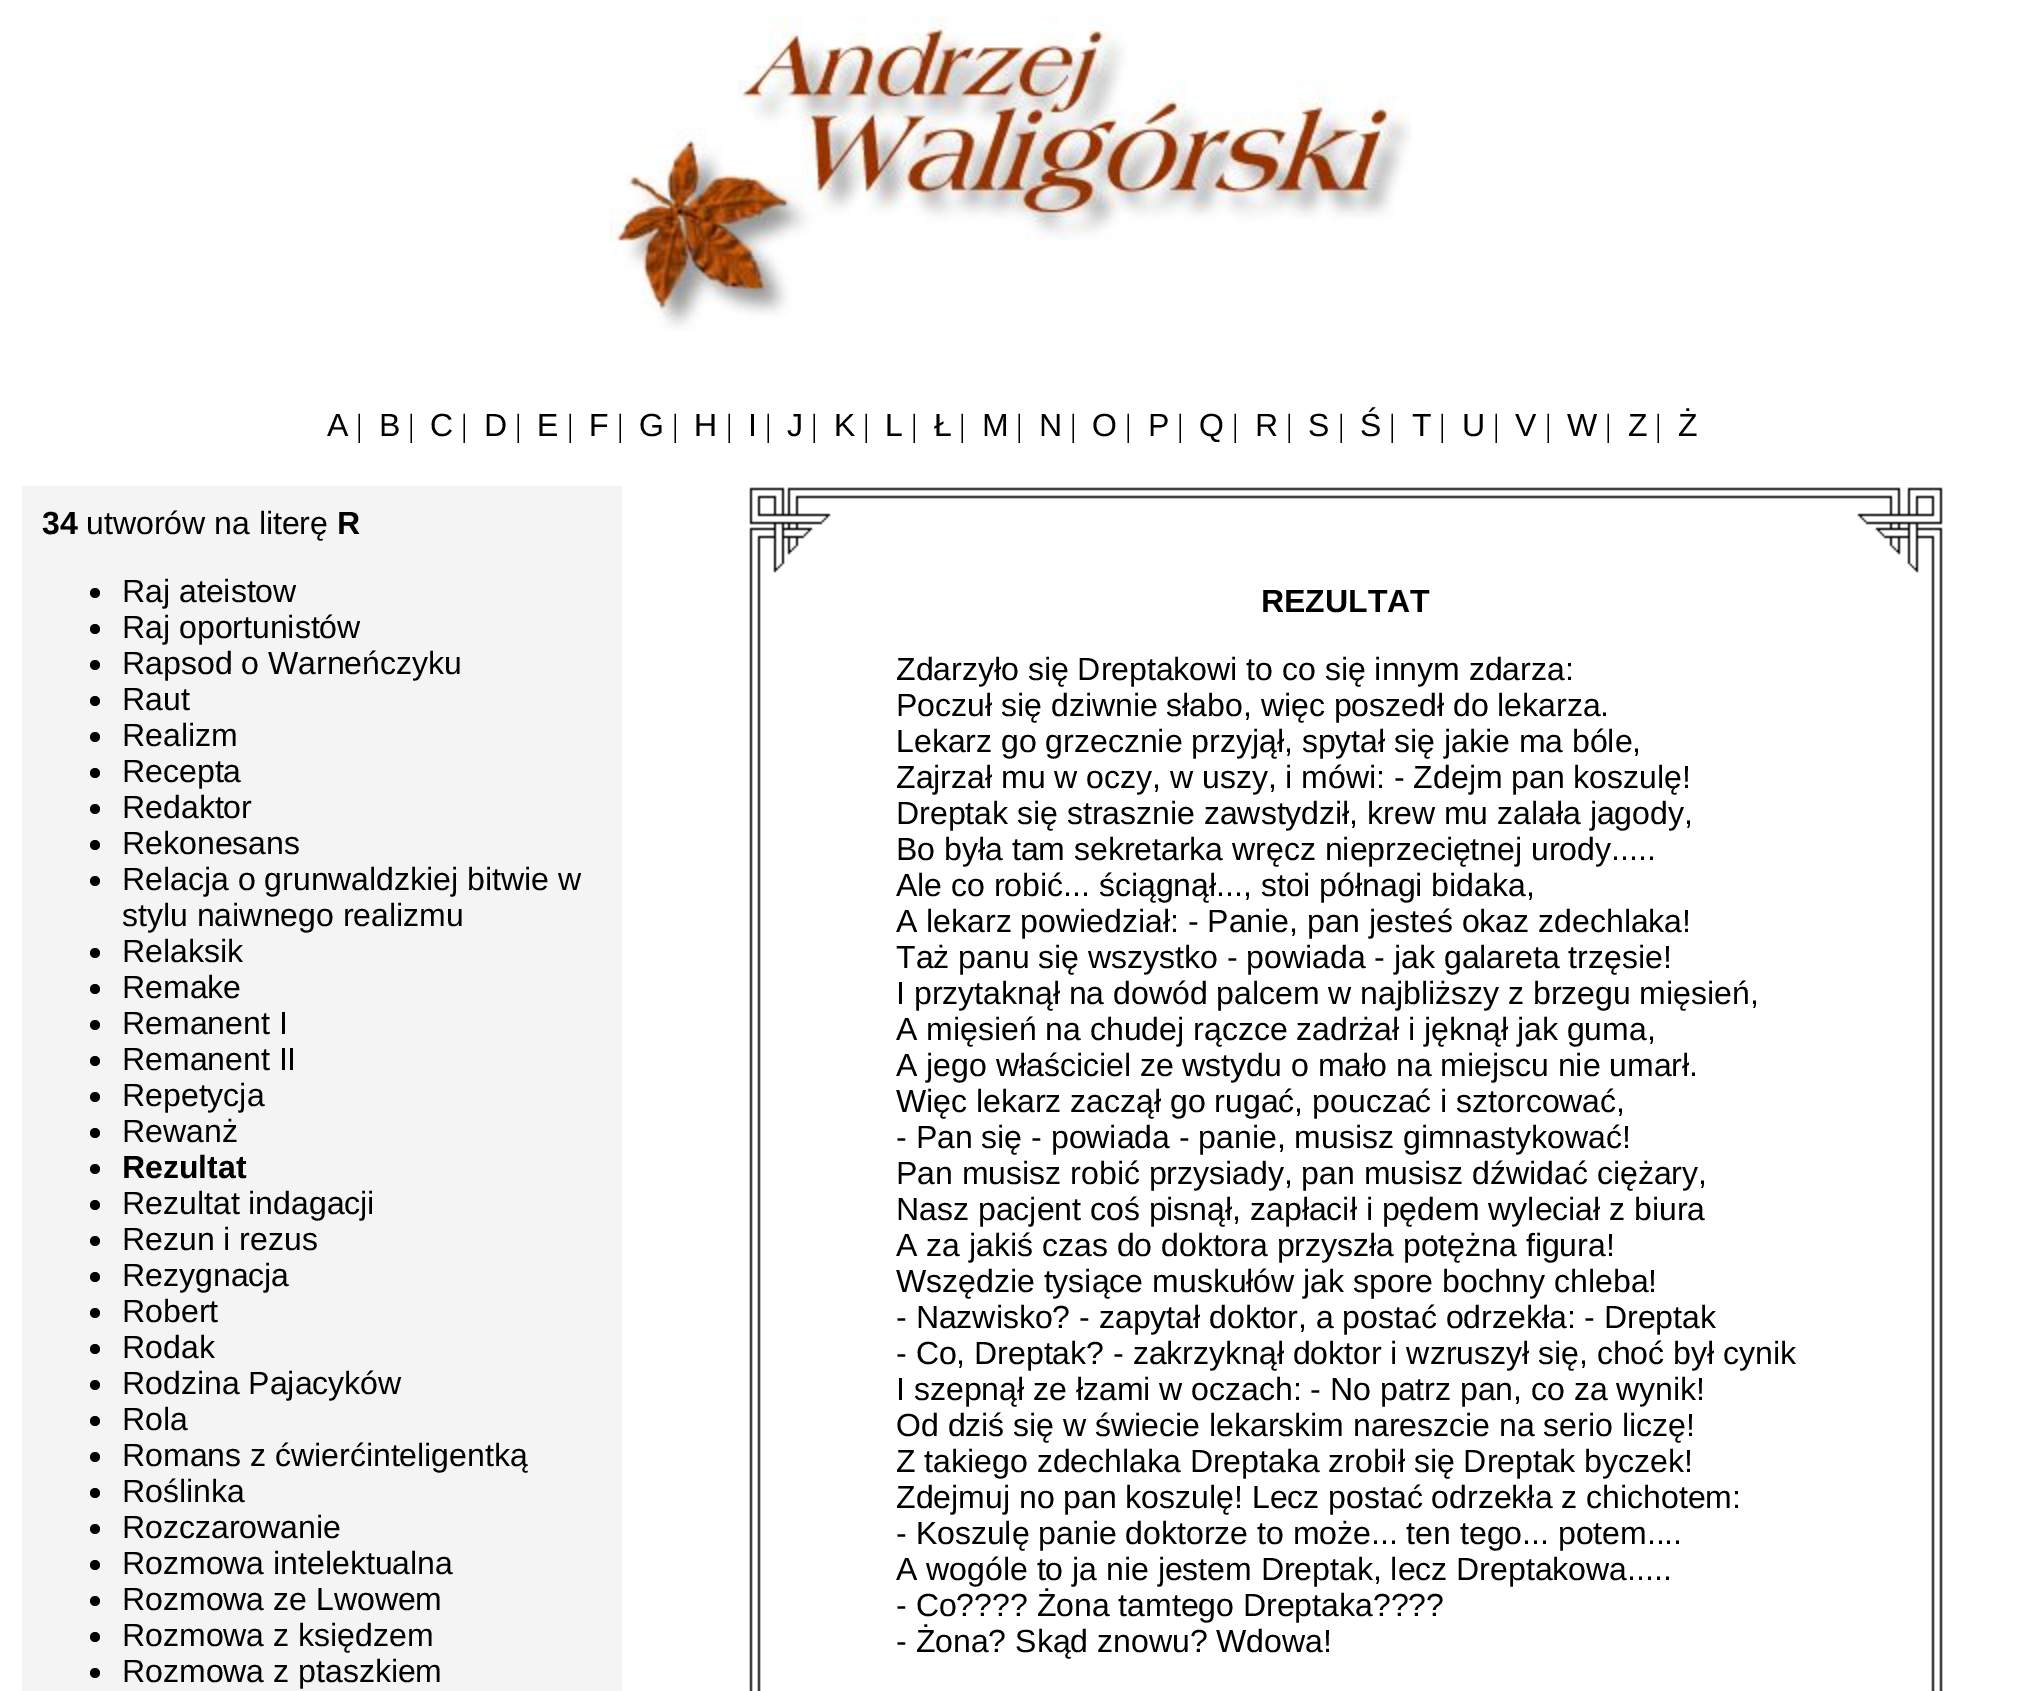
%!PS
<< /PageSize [2023 1691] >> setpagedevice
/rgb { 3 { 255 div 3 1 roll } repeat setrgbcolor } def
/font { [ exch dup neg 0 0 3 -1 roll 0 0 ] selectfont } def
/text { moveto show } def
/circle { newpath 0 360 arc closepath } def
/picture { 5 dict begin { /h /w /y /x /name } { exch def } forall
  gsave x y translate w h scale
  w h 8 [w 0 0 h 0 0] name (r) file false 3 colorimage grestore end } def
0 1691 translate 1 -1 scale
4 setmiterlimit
255 255 255 rgb
0 0 2023 1691 rectfill
(img_01.rgb) 610 16 802 315 picture
244 244 244 rgb
22 486 600 1205 rectfill
0 0 0 rgb
95 593 5 circle fill
95 629 5 circle fill
95 665 5 circle fill
95 701 5 circle fill
95 737 5 circle fill
95 773 5 circle fill
95 809 5 circle fill
95 845 5 circle fill
95 881 5 circle fill
95 953 5 circle fill
95 989 5 circle fill
95 1025 5 circle fill
95 1061 5 circle fill
95 1097 5 circle fill
95 1133 5 circle fill
95 1169 5 circle fill
95 1205 5 circle fill
95 1241 5 circle fill
95 1277 5 circle fill
95 1313 5 circle fill
95 1349 5 circle fill
95 1385 5 circle fill
95 1421 5 circle fill
95 1457 5 circle fill
95 1493 5 circle fill
95 1529 5 circle fill
95 1565 5 circle fill
95 1601 5 circle fill
95 1637 5 circle fill
95 1673 5 circle fill
(img_02.rgb) 749 487 87 87 picture
(img_03.rgb) 836 487 1020 12 picture
(img_04.rgb) 1856 487 87 87 picture
(img_05.rgb) 749 574 12 1117 picture
(img_05.rgb) 1931 574 12 1117 picture
/LiberationSans-Regular 32 font
(A) 327 436 text
/LiberationSerif-Regular 32 font
(|) 356 436 text
/LiberationSans-Regular 32 font
(B) 379 436 text
/LiberationSerif-Regular 32 font
(|) 408 436 text
/LiberationSans-Regular 32 font
(C) 430 436 text
/LiberationSerif-Regular 32 font
(|) 461 436 text
/LiberationSans-Regular 32 font
(D) 484 436 text
/LiberationSerif-Regular 32 font
(|) 515 436 text
/LiberationSans-Regular 32 font
(E) 537 436 text
/LiberationSerif-Regular 32 font
(|) 567 436 text
/LiberationSans-Regular 32 font
(F) 589 436 text
/LiberationSerif-Regular 32 font
(|) 617 436 text
/LiberationSans-Regular 32 font
(G) 639 436 text
/LiberationSerif-Regular 32 font
(|) 672 436 text
/LiberationSans-Regular 32 font
(H) 694 436 text
/LiberationSerif-Regular 32 font
(|) 726 436 text
/LiberationSans-Regular 32 font
(I) 748 436 text
/LiberationSerif-Regular 32 font
(|) 765 436 text
/LiberationSans-Regular 32 font
(J) 787 436 text
/LiberationSerif-Regular 32 font
(|) 811 436 text
/LiberationSans-Regular 32 font
(K) 834 436 text
/LiberationSerif-Regular 32 font
(|) 863 436 text
/LiberationSans-Regular 32 font
(L) 885 436 text
/LiberationSerif-Regular 32 font
(|) 911 436 text
/LiberationSans-Regular 32 font
(Ł) 934 436 text
/LiberationSerif-Regular 32 font
(|) 959 436 text
/LiberationSans-Regular 32 font
(M) 982 436 text
/LiberationSerif-Regular 32 font
(|) 1016 436 text
/LiberationSans-Regular 32 font
(N) 1039 436 text
/LiberationSerif-Regular 32 font
(|) 1070 436 text
/LiberationSans-Regular 32 font
(O) 1092 436 text
/LiberationSerif-Regular 32 font
(|) 1125 436 text
/LiberationSans-Regular 32 font
(P) 1148 436 text
/LiberationSerif-Regular 32 font
(|) 1177 436 text
/LiberationSans-Regular 32 font
(Q) 1199 436 text
/LiberationSerif-Regular 32 font
(|) 1232 436 text
/LiberationSans-Regular 32 font
(R) 1255 436 text
/LiberationSerif-Regular 32 font
(|) 1286 436 text
/LiberationSans-Regular 32 font
(S) 1308 436 text
/LiberationSerif-Regular 32 font
(|) 1338 436 text
/LiberationSans-Regular 32 font
(Ś) 1360 436 text
/LiberationSerif-Regular 32 font
(|) 1389 436 text
/LiberationSans-Regular 32 font
(T) 1412 436 text
/LiberationSerif-Regular 32 font
(|) 1439 436 text
/LiberationSans-Regular 32 font
(U) 1462 436 text
/LiberationSerif-Regular 32 font
(|) 1493 436 text
/LiberationSans-Regular 32 font
(V) 1515 436 text
/LiberationSerif-Regular 32 font
(|) 1545 436 text
/LiberationSans-Regular 32 font
(W) 1567 436 text
/LiberationSerif-Regular 32 font
(|) 1605 436 text
/LiberationSans-Regular 32 font
(Z) 1628 436 text
/LiberationSerif-Regular 32 font
(|) 1655 436 text
/LiberationSans-Regular 32 font
(Ż) 1678 436 text
/LiberationSans-Bold 32 font
(34) 42 534 text
/LiberationSans-Regular 32 font
(utworów na literę) 86 534 text
/LiberationSans-Bold 32 font
(R) 337 534 text
/LiberationSans-Regular 32 font
(Raj ateistow) 122 602 text
(Raj oportunistów) 122 638 text
(Rapsod o Warneńczyku) 122 674 text
(Raut) 122 710 text
(Realizm) 122 746 text
(Recepta) 122 782 text
(Redaktor) 122 818 text
(Rekonesans) 122 854 text
(Relacja o grunwaldzkiej bitwie w) 122 890 text
(stylu naiwnego realizmu) 122 926 text
(Relaksik) 122 962 text
(Remake) 122 998 text
(Remanent I) 122 1034 text
(Remanent II) 122 1070 text
(Repetycja) 122 1106 text
(Rewanż) 122 1142 text
/LiberationSans-Bold 32 font
(Rezultat) 122 1178 text
/LiberationSans-Regular 32 font
(Rezultat indagacji) 122 1214 text
(Rezun i rezus) 122 1250 text
(Rezygnacja) 122 1286 text
(Robert) 122 1322 text
(Rodak) 122 1358 text
(Rodzina Pajacyków) 122 1394 text
(Rola) 122 1430 text
(Romans z ćwierćinteligentką) 122 1466 text
(Roślinka) 122 1502 text
(Rozczarowanie) 122 1538 text
(Rozmowa intelektualna) 122 1574 text
(Rozmowa ze Lwowem) 122 1610 text
(Rozmowa z księdzem) 122 1646 text
(Rozmowa z ptaszkiem) 122 1682 text
/LiberationSans-Bold 32 font
(REZULTAT) 1261 612 text
/LiberationSans-Regular 32 font
(Zdarzyło się Dreptakowi to co się innym zdarza:) 896 680 text
(Poczuł się dziwnie słabo, więc poszedł do lekarza.) 896 716 text
(Lekarz go grzecznie przyjął, spytał się jakie ma bóle,) 896 752 text
(Zajrzał mu w oczy, w uszy, i mówi: - Zdejm pan koszulę!) 896 788 text
(Dreptak się strasznie zawstydził, krew mu zalała jagody,) 896 824 text
(Bo była tam sekretarka wręcz nieprzeciętnej urody.....) 896 860 text
(Ale co robić... ściągnął..., stoi półnagi bidaka,) 896 896 text
(A lekarz powiedział: - Panie, pan jesteś okaz zdechlaka!) 896 932 text
(Taż panu się wszystko - powiada - jak galareta trzęsie!) 896 968 text
(I przytaknął na dowód palcem w najbliższy z brzegu mięsień,) 896 1004 text
(A mięsień na chudej rączce zadrżał i jęknął jak guma,) 896 1040 text
(A jego właściciel ze wstydu o mało na miejscu nie umarł.) 896 1076 text
(Więc lekarz zaczął go rugać, pouczać i sztorcować,) 896 1112 text
(- Pan się - powiada - panie, musisz gimnastykować!) 896 1148 text
(Pan musisz robić przysiady, pan musisz dźwidać ciężary,) 896 1184 text
(Nasz pacjent coś pisnął, zapłacił i pędem wyleciał z biura) 896 1220 text
(A za jakiś czas do doktora przyszła potężna figura!) 896 1256 text
(Wszędzie tysiące muskułów jak spore bochny chleba!) 896 1292 text
(- Nazwisko? - zapytał doktor, a postać odrzekła: - Dreptak) 896 1328 text
(- Co, Dreptak? - zakrzyknął doktor i wzruszył się, choć był cynik) 896 1364 text
(I szepnął ze łzami w oczach: - No patrz pan, co za wynik!) 896 1400 text
(Od dziś się w świecie lekarskim nareszcie na serio liczę!) 896 1436 text
(Z takiego zdechlaka Dreptaka zrobił się Dreptak byczek!) 896 1472 text
(Zdejmuj no pan koszulę! Lecz postać odrzekła z chichotem:) 896 1508 text
(- Koszulę panie doktorze to może... ten tego... potem....) 896 1544 text
(A wogóle to ja nie jestem Dreptak, lecz Dreptakowa.....) 896 1580 text
(- Co???? Żona tamtego Dreptaka????) 896 1616 text
(- Żona? Skąd znowu? Wdowa!) 896 1652 text
showpage
